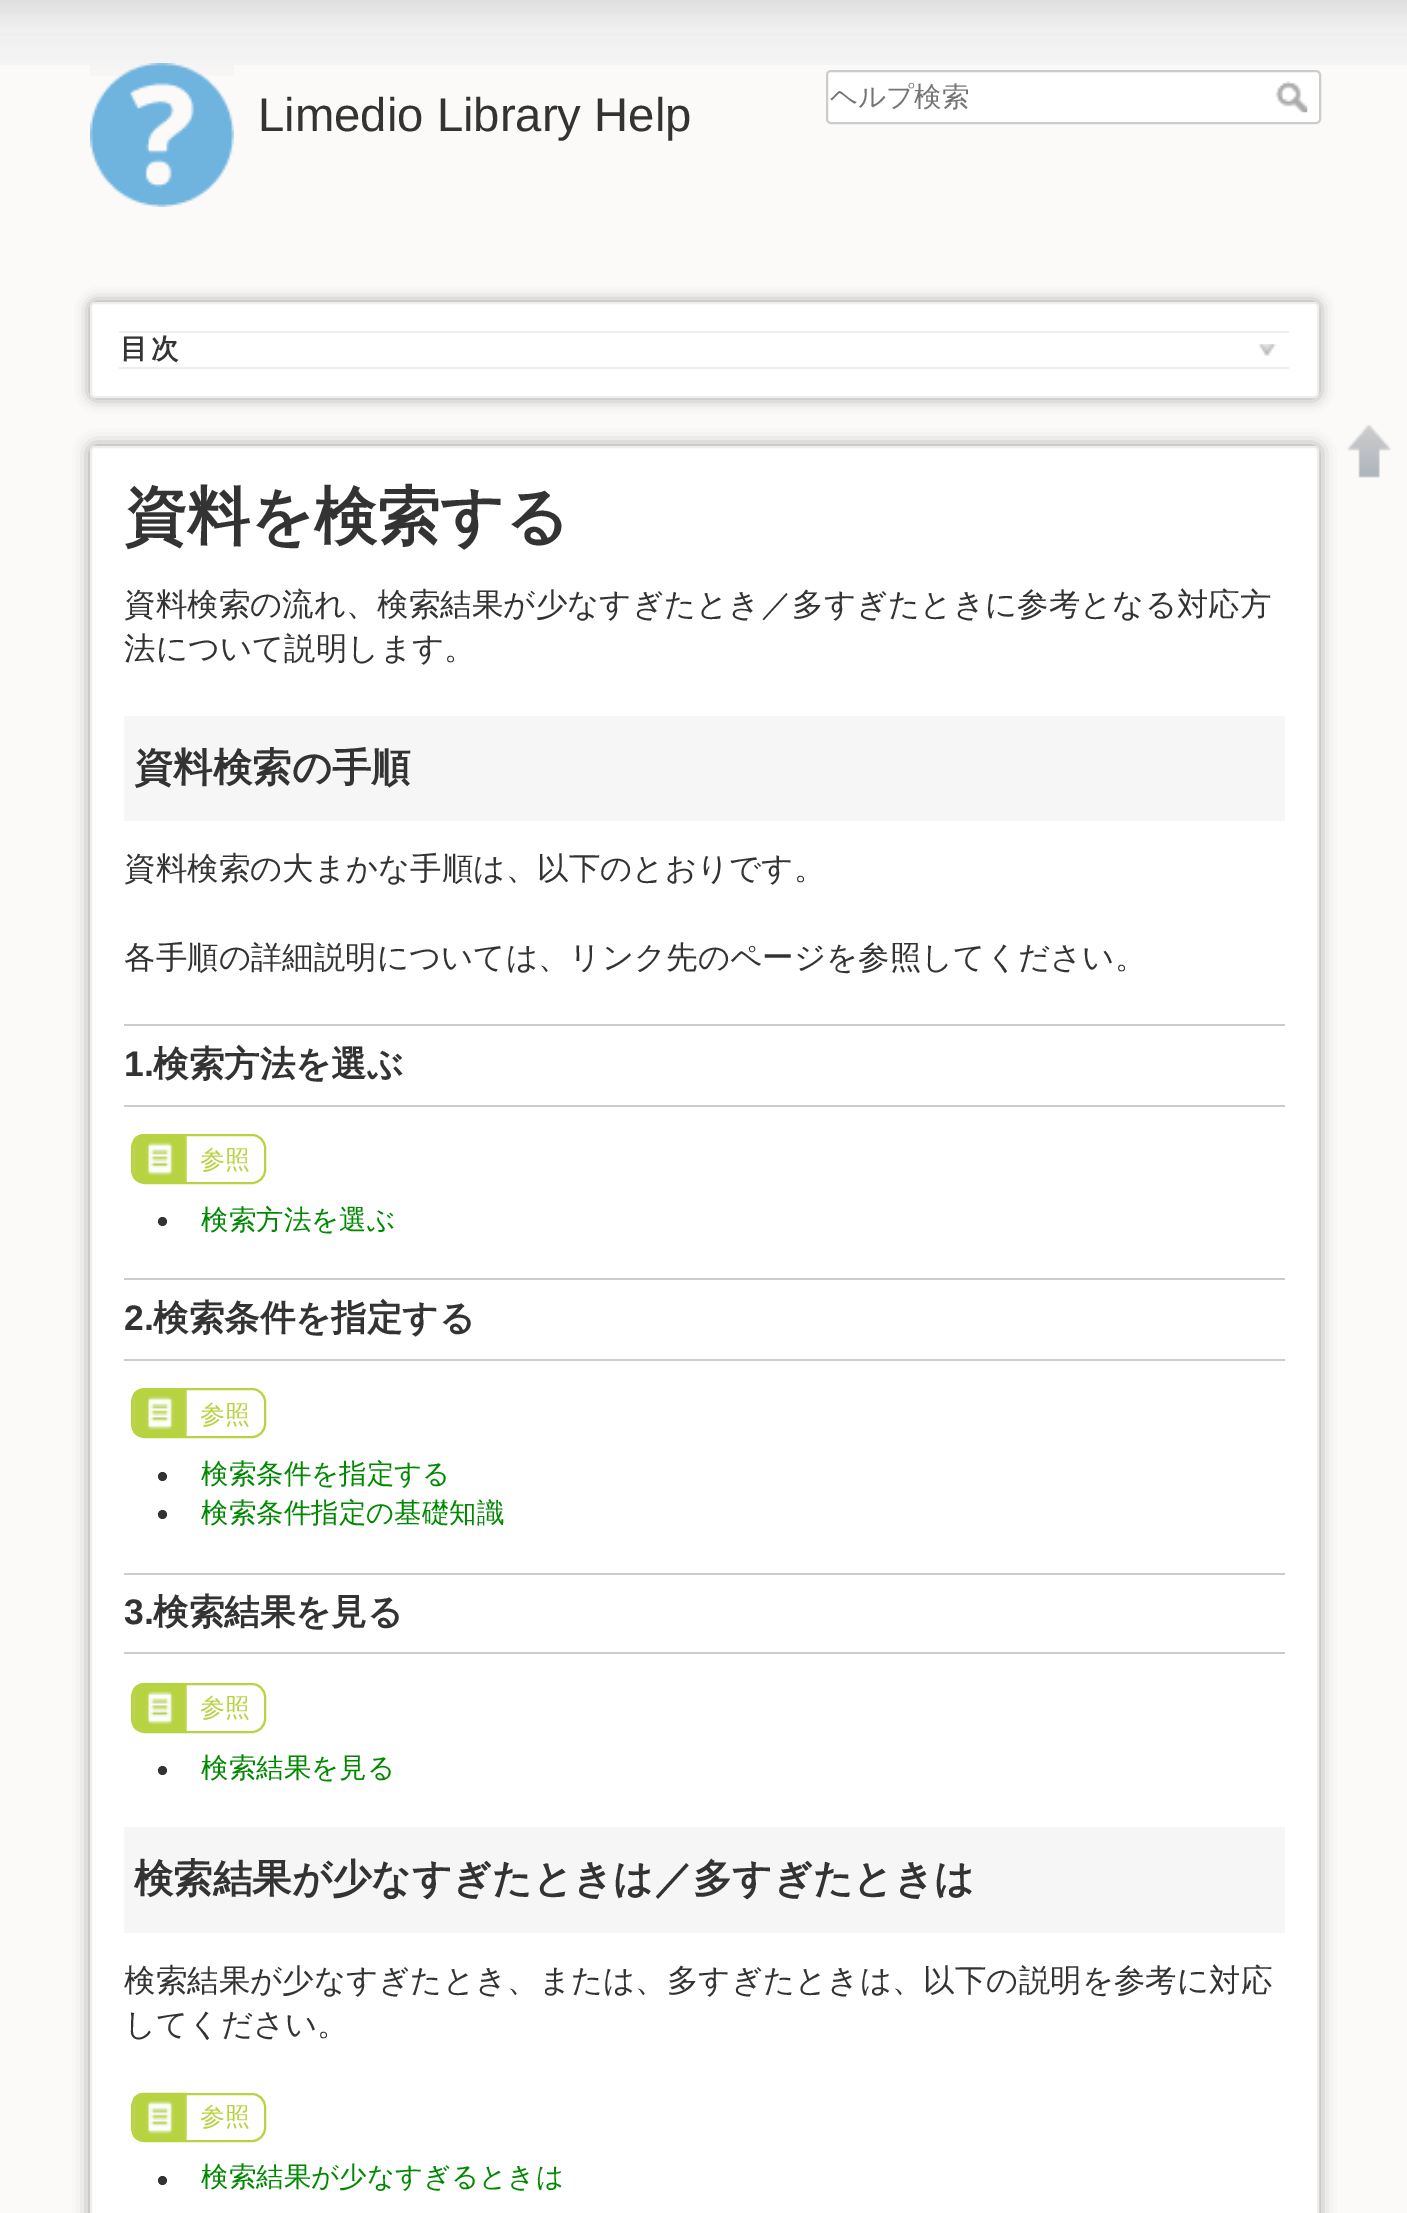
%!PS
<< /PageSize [1407 2213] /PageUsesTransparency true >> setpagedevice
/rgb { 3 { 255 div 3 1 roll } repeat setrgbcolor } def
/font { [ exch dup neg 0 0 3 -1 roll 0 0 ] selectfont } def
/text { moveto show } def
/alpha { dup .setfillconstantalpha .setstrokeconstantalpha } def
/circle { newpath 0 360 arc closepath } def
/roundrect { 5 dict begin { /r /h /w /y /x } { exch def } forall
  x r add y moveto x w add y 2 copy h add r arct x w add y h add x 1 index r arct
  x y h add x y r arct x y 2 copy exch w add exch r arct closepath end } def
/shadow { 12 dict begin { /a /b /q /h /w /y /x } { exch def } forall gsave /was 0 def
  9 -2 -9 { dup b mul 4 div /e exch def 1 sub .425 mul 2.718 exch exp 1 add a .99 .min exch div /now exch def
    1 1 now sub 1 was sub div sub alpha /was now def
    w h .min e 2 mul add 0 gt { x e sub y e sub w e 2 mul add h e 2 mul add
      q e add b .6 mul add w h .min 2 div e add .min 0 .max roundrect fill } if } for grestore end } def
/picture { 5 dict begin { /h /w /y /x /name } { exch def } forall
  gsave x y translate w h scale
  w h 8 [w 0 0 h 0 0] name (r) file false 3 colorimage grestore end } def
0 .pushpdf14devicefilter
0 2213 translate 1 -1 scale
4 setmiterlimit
251 250 249 rgb
0 0 1407 2213 rectfill
(img_01.rgb) 0 0 1407 65 picture
(img_02.rgb) 90 63 144 144 picture
255 255 255 rgb
827 71 493 52 4 roundrect gsave fill grestore
204 204 204 rgb
2 setlinewidth
stroke
(img_03.rgb) 1276 81 32 32 picture
153 153 153 rgb
90 302 1229 96 5 7 1 shadow
255 255 255 rgb
91 303 1227 94 4 roundrect gsave fill grestore
238 238 238 rgb
stroke
119 331 1170 2 rectfill
119 367 1170 2 rectfill
(img_04.rgb) 1258 344 18 12 picture
(img_05.rgb) 1347 424 44 54 picture
153 153 153 rgb
90 446 1229 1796 5 8 1 shadow
255 255 255 rgb
91 447 1227 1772 4 roundrect gsave fill grestore
238 238 238 rgb
stroke
246 246 246 rgb
124 716 1161 105 rectfill
204 204 204 rgb
124 1024 1161 2 rectfill
124 1105 1161 2 rectfill
(img_06.rgb) 132 1134 55 50 picture
183 211 66 rgb
132 1135 133 48 13 roundrect stroke
51 51 51 rgb
162.5 1221.5 4.5 circle fill
204 204 204 rgb
124 1278 1161 2 rectfill
124 1359 1161 2 rectfill
(img_07.rgb) 132 1388 55 50 picture
183 211 66 rgb
132 1389 133 48 13 roundrect stroke
51 51 51 rgb
162.5 1476.5 4.5 circle fill
162.5 1514.5 4.5 circle fill
204 204 204 rgb
124 1573 1161 2 rectfill
124 1652 1161 2 rectfill
(img_08.rgb) 132 1683 55 50 picture
183 211 66 rgb
132 1684 133 48 13 roundrect stroke
51 51 51 rgb
162.5 1770.5 4.5 circle fill
246 246 246 rgb
124 1827 1161 106 rectfill
(img_09.rgb) 132 2092 55 50 picture
183 211 66 rgb
132 2094 133 47 13 roundrect stroke
51 51 51 rgb
162.5 2180.5 4.5 circle fill
/LiberationSans-Regular 47.25 font
(Limedio Library Help) 258 131 text
/WenQuanYiZenHei-Medium 27.5 font
117 117 117 rgb
(ヘルプ検索) 830 106 text
/WenQuanYiZenHei-Bold 27.5 font
51 51 51 rgb
120 358 moveto 3 0 (目次) ashow
/WenQuanYiZenHei-Bold 63 font
(資料を検索する) 124 538 text
/WenQuanYiZenHei-Medium 31.5 font
(資料検索の流れ、検索結果が少なすぎたとき／多すぎたときに参考となる対応方) 124 615 text
(法について説明します。) 124 659 text
/WenQuanYiZenHei-Bold 39.4 font
(資料検索の手順) 134 781 text
/WenQuanYiZenHei-Medium 31.5 font
(資料検索の大まかな手順は、以下のとおりです。) 124 879 text
(各手順の詳細説明については、リンク先のページを参照してください。) 124 968 text
/LiberationSans-Bold 35.5 font
(1.) 124 1076 text
/WenQuanYiZenHei-Bold 35.5 font
(検索方法を選ぶ) 153 1076 text
/WenQuanYiZenHei-Medium 25 font
183 211 66 rgb
(参照) 200 1168 text
/WenQuanYiZenHei-Medium 27.5 font
0 136 0 rgb
(検索方法を選ぶ) 201 1229 text
/LiberationSans-Bold 35.5 font
51 51 51 rgb
(2.) 124 1330 text
/WenQuanYiZenHei-Bold 35.5 font
(検索条件を指定する) 153 1330 text
/WenQuanYiZenHei-Medium 25 font
183 211 66 rgb
(参照) 200 1423 text
/WenQuanYiZenHei-Medium 27.5 font
0 136 0 rgb
(検索条件を指定する) 201 1483 text
(検索条件指定の基礎知識) 201 1522 text
/LiberationSans-Bold 35.5 font
51 51 51 rgb
(3.) 124 1624 text
/WenQuanYiZenHei-Bold 35.5 font
(検索結果を見る) 153 1624 text
/WenQuanYiZenHei-Medium 25 font
183 211 66 rgb
(参照) 200 1716 text
/WenQuanYiZenHei-Medium 27.5 font
0 136 0 rgb
(検索結果を見る) 201 1777 text
/WenQuanYiZenHei-Bold 39.4 font
51 51 51 rgb
(検索結果が少なすぎたときは／多すぎたときは) 134 1892 text
/WenQuanYiZenHei-Medium 31.5 font
(検索結果が少なすぎたとき、または、多すぎたときは、以下の説明を参考に対応) 124 1991 text
(してください。) 124 2035 text
/WenQuanYiZenHei-Medium 25 font
183 211 66 rgb
(参照) 200 2125 text
/WenQuanYiZenHei-Medium 27.5 font
0 136 0 rgb
(検索結果が少なすぎるときは) 201 2186 text
.poppdf14devicefilter showpage
